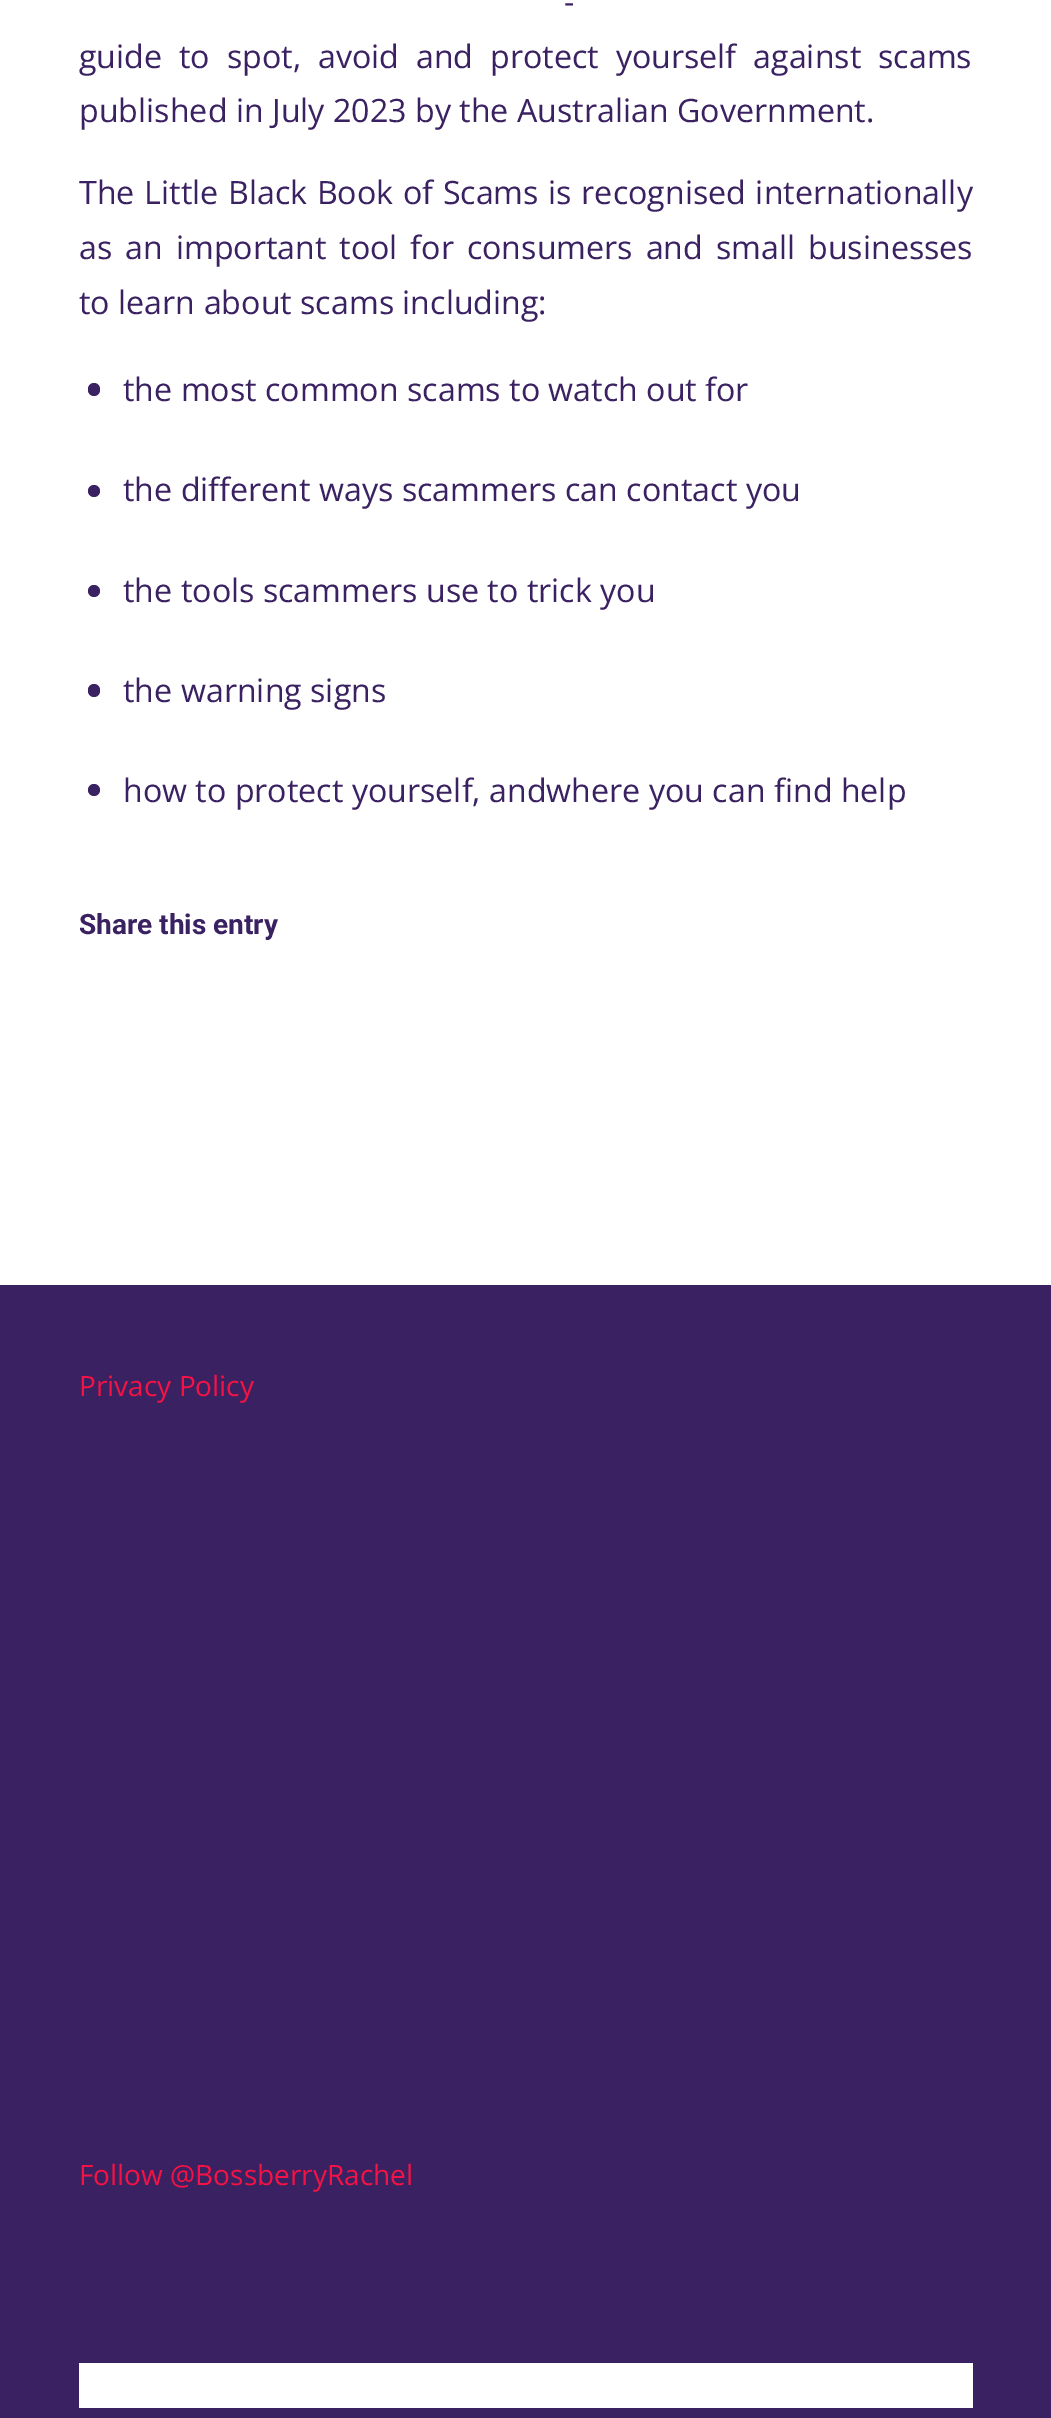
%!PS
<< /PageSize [1051 2418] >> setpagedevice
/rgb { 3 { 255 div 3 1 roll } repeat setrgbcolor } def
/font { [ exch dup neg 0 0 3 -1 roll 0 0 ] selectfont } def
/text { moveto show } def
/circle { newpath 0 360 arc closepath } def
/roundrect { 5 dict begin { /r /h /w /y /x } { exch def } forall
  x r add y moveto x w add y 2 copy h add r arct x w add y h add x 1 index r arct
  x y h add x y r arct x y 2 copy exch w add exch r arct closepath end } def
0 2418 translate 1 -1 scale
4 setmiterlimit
255 255 255 rgb
0 0 1051 2418 rectfill
58 33 97 rgb
88 383 12 13 6 roundrect fill
94 491 6 circle fill
94 591 6 circle fill
88 684 12 13 6 roundrect fill
94 790 6 circle fill
0 1285 1051 1133 rectfill
255 255 255 rgb
79 2363 894 45 rectfill
/OpenSans-Regular 32.2 font
58 33 97 rgb
564 13 moveto 4 0 32 (-) widthshow
79 68 moveto 8.5 0 32 (guide to spot, avoid and protect yourself against scams) widthshow
(published in July 2023 by the Australian Government.) 79 122 text
79 204 moveto 1.25 0 32 (The Little Black Book of Scams is recognised internationally) widthshow
79 259 moveto 4.5 0 32 (as an important tool for consumers and small businesses) widthshow
(to learn about scams including:) 79 314 text
(the most common scams to watch out for) 123 401 text
(the different ways scammers can contact you) 123 501 text
(the tools scammers use to trick you) 123 602 text
(the warning signs) 123 702 text
(how to protect yourself, andwhere you can find help) 123 802 text
/Roboto-Bold 28 font
(Share this entry) 79 934 text
/OpenSans-Regular 28 font
244 19 68 rgb
(Privacy Policy) 79 1396 text
(Follow @BossberryRachel) 79 2185 text
showpage
